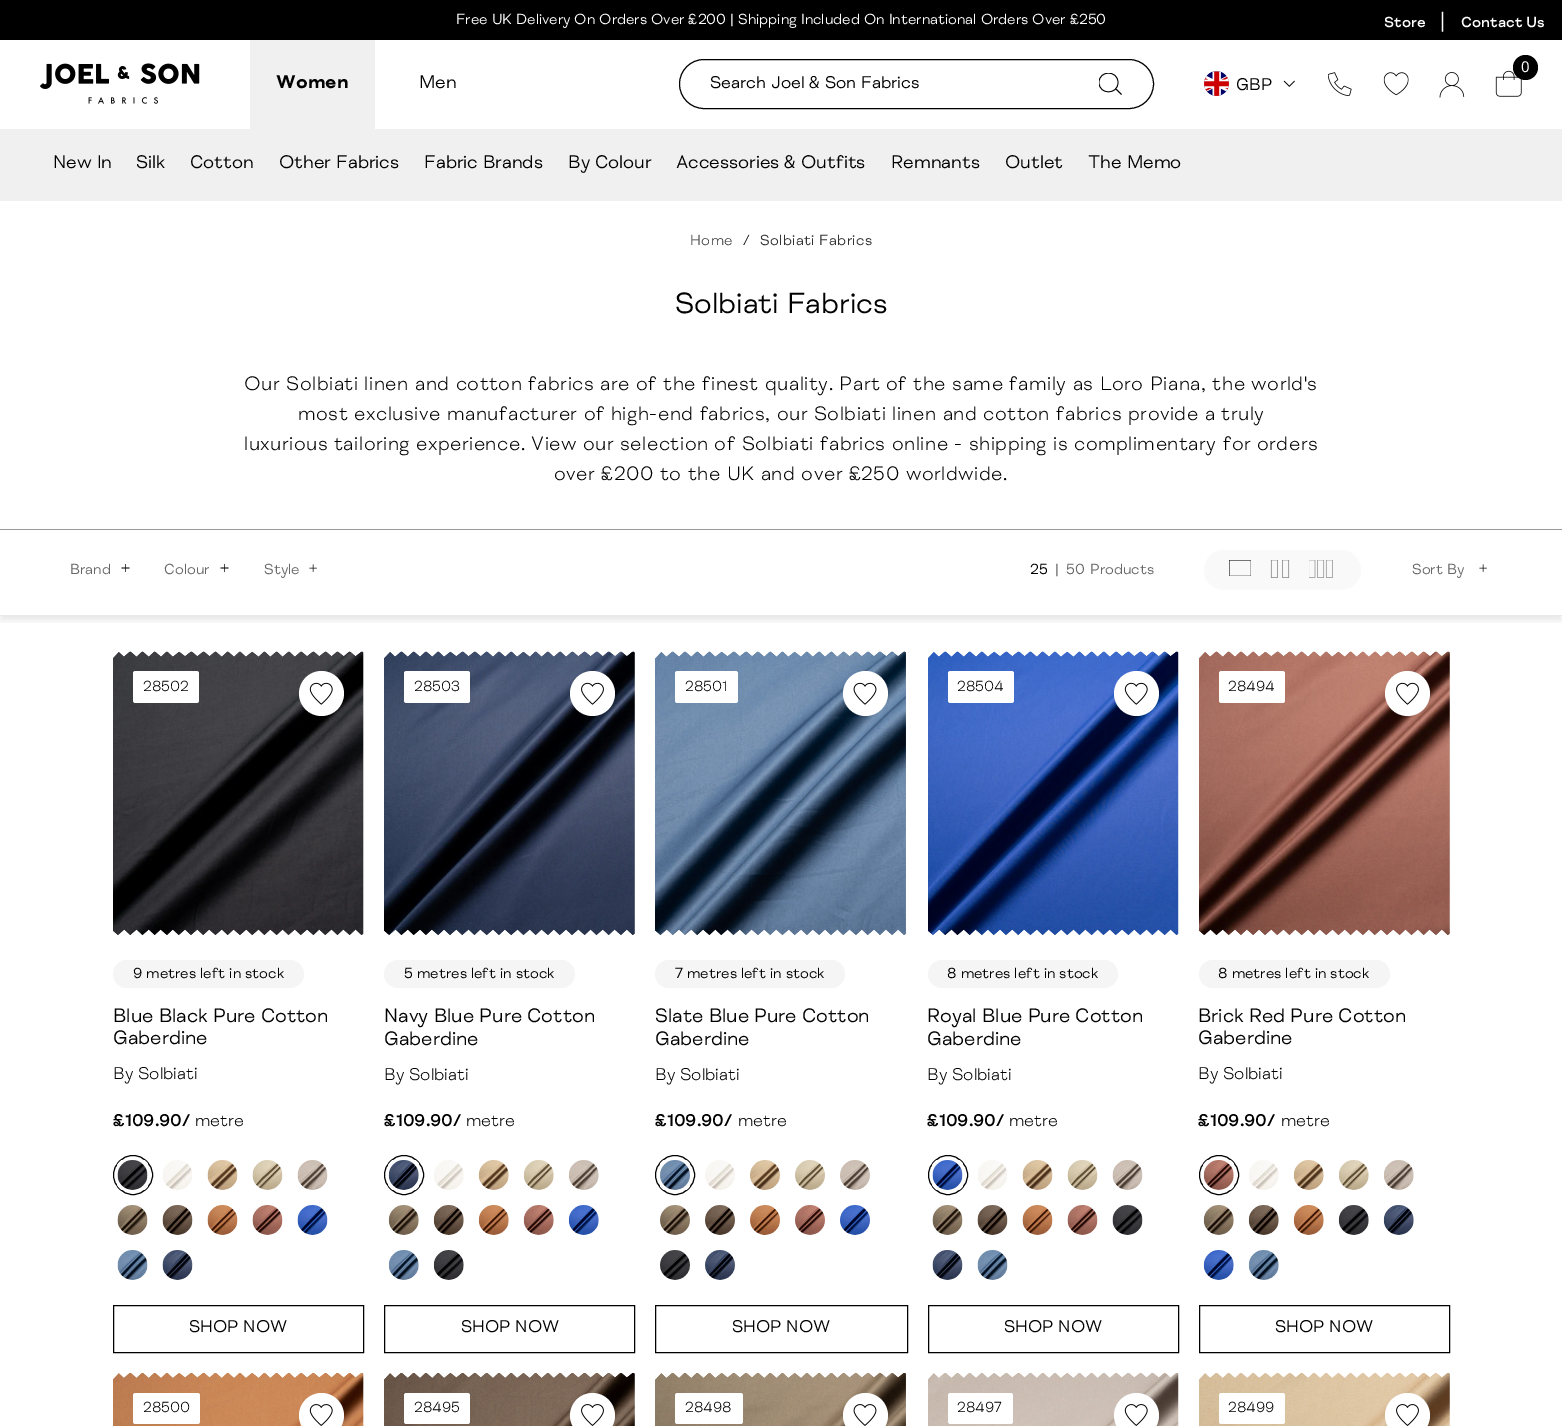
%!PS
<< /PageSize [1562 1426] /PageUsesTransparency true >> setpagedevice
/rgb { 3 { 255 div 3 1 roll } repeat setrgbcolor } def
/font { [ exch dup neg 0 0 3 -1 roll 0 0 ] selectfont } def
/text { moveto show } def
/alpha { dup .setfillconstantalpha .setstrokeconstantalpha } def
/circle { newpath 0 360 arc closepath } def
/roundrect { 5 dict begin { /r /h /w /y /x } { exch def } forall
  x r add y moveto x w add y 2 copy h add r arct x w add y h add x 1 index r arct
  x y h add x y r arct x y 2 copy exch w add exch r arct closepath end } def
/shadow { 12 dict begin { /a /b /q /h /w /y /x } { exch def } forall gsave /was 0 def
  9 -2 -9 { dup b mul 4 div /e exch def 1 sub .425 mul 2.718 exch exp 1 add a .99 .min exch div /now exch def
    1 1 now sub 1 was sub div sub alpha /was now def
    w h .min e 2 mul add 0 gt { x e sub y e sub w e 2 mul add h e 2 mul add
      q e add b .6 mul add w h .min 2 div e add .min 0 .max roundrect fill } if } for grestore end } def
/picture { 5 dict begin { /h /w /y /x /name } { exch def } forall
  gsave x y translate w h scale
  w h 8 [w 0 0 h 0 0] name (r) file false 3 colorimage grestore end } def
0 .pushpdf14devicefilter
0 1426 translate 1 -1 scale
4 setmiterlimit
255 255 255 rgb
0 0 1562 1426 rectfill
0 0 0 rgb
0 0 1562 40 rectfill
(img_01.rgb) 40 63 160 41 picture
240 240 240 rgb
250 40 125 89 rectfill
0 0 0 rgb
679.5 59.5 474 49 24.5 roundrect stroke
gsave
1099 73 24 22 rectclip
0.8 setlinewidth
1118 82.5 moveto 0 12.5 -19 12.5 -19 0 rcurveto 0 -12.5 19 -12.5 19 0 rcurveto closepath 1115.5 88.5 moveto 6 6 rlineto stroke
grestore
(img_02.rgb) 1495 70 27 27 picture
1525.5 67.5 12.5 circle fill
(img_03.rgb) 1204 71 25 25 picture
(img_04.rgb) 1283 80 12 7 picture
(img_05.rgb) 1328 72 24 24 picture
(img_06.rgb) 1383 72 26 24 picture
(img_07.rgb) 1439 72 26 26 picture
240 240 240 rgb
0 129 1562 72 rectfill
gsave
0 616 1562 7 rectclip
0 0 0 rgb
1 535 1560 85 0 4 0.1 shadow
grestore
153 153 153 rgb
0 529 1562 1 rectfill
233 233 233 rgb
0 615 1562 1 rectfill
77 77 77 rgb
125 564 1 8 rectfill
0 0 0 rgb
0.7 setlinewidth
2 setlinecap
129 568 moveto -7 0 rlineto stroke
77 77 77 rgb
224 564 1 8 rectfill
0 0 0 rgb
228 568 moveto -7 0 rlineto stroke
(img_08.rgb) 309 564 8 8 picture
249 249 249 rgb
1204 550 157 40 20 roundrect fill
gsave
1229 560 22 16 rectclip
0 0 0 rgb
0.6 setlinewidth
0 setlinecap
1229 560 moveto 22 0 rlineto 0 16 rlineto -22 0 rlineto closepath stroke
grestore
(img_09.rgb) 1270 560 20 18 picture
(img_10.rgb) 1309 560 24 18 picture
(img_08.rgb) 1479 564 8 8 picture
(img_11.rgb) 113 651 251 284 picture
(img_12.rgb) 113 651 251 284 picture
255 255 255 rgb
133 671 66 32 2.5 roundrect fill
321.5 693.5 22.5 circle fill
(img_13.rgb) 309 682 24 23 picture
245 245 245 rgb
113 960 191 28 14 roundrect fill
0 0 0 rgb
1 setlinewidth
0 setlinecap
133 1175 19.5 circle stroke
(img_14.rgb) 117 1160 31 30 picture
(img_15.rgb) 163 1160 29 30 picture
(img_16.rgb) 207 1160 31 30 picture
(img_17.rgb) 252 1160 31 30 picture
(img_18.rgb) 297 1160 31 30 picture
(img_19.rgb) 117 1205 31 30 picture
(img_20.rgb) 162 1205 31 30 picture
(img_21.rgb) 207 1205 31 30 picture
(img_22.rgb) 252 1205 31 30 picture
(img_23.rgb) 297 1205 31 30 picture
(img_24.rgb) 117 1250 31 30 picture
(img_25.rgb) 162 1250 31 30 picture
113.5 1305.5 250 47 rectstroke
(img_26.rgb) 384 651 251 284 picture
(img_27.rgb) 384 651 251 284 picture
255 255 255 rgb
404 671 66 32 2.5 roundrect fill
592.5 693.5 22.5 circle fill
(img_28.rgb) 581 682 23 23 picture
245 245 245 rgb
384 960 191 28 14 roundrect fill
0 0 0 rgb
404 1175 19.5 circle stroke
(img_29.rgb) 388 1160 31 30 picture
(img_30.rgb) 434 1160 30 30 picture
(img_31.rgb) 478 1160 31 30 picture
(img_32.rgb) 523 1160 31 30 picture
(img_33.rgb) 568 1160 31 30 picture
(img_34.rgb) 388 1205 31 30 picture
(img_35.rgb) 433 1205 31 30 picture
(img_36.rgb) 478 1205 31 30 picture
(img_37.rgb) 523 1205 31 30 picture
(img_38.rgb) 568 1205 31 30 picture
(img_39.rgb) 388 1250 31 30 picture
(img_40.rgb) 433 1250 31 30 picture
384.5 1305.5 250 47 rectstroke
(img_41.rgb) 655 651 251 284 picture
(img_42.rgb) 655 651 251 284 picture
255 255 255 rgb
675 671 63 32 2.5 roundrect fill
865.5 693.5 22.5 circle fill
(img_43.rgb) 853 682 24 23 picture
245 245 245 rgb
655 960 190 28 14 roundrect fill
0 0 0 rgb
675 1175 19.5 circle stroke
(img_44.rgb) 660 1160 30 30 picture
(img_45.rgb) 705 1160 30 30 picture
(img_46.rgb) 750 1160 30 30 picture
(img_47.rgb) 795 1160 30 30 picture
(img_48.rgb) 840 1160 30 30 picture
(img_49.rgb) 660 1205 30 30 picture
(img_50.rgb) 705 1205 30 30 picture
(img_51.rgb) 750 1205 30 30 picture
(img_52.rgb) 795 1205 30 30 picture
(img_53.rgb) 840 1205 30 30 picture
(img_54.rgb) 660 1250 30 30 picture
(img_55.rgb) 705 1250 30 30 picture
655.5 1305.5 252 47 rectstroke
(img_56.rgb) 928 651 251 284 picture
(img_57.rgb) 928 651 251 284 picture
255 255 255 rgb
948 671 66 32 2.5 roundrect fill
1136.5 693.5 22.5 circle fill
(img_13.rgb) 1124 682 24 23 picture
245 245 245 rgb
928 960 190 28 14 roundrect fill
0 0 0 rgb
948 1175 19.5 circle stroke
(img_58.rgb) 932 1160 31 30 picture
(img_59.rgb) 978 1160 29 30 picture
(img_60.rgb) 1022 1160 31 30 picture
(img_61.rgb) 1067 1160 31 30 picture
(img_62.rgb) 1112 1160 31 30 picture
(img_63.rgb) 932 1205 31 30 picture
(img_64.rgb) 977 1205 31 30 picture
(img_65.rgb) 1022 1205 31 30 picture
(img_66.rgb) 1067 1205 31 30 picture
(img_67.rgb) 1112 1205 31 30 picture
(img_68.rgb) 932 1250 31 30 picture
(img_69.rgb) 977 1250 31 30 picture
928.5 1305.5 250 47 rectstroke
(img_70.rgb) 1199 651 251 284 picture
(img_71.rgb) 1199 651 251 284 picture
255 255 255 rgb
1219 671 66 32 2.5 roundrect fill
1407.5 693.5 22.5 circle fill
(img_28.rgb) 1396 682 23 23 picture
245 245 245 rgb
1199 960 191 28 14 roundrect fill
0 0 0 rgb
1219 1175 19.5 circle stroke
(img_72.rgb) 1203 1160 31 30 picture
(img_73.rgb) 1249 1160 30 30 picture
(img_74.rgb) 1293 1160 31 30 picture
(img_75.rgb) 1338 1160 31 30 picture
(img_76.rgb) 1383 1160 31 30 picture
(img_77.rgb) 1203 1205 31 30 picture
(img_78.rgb) 1248 1205 31 30 picture
(img_36.rgb) 1293 1205 31 30 picture
(img_79.rgb) 1338 1205 31 30 picture
(img_80.rgb) 1383 1205 31 30 picture
(img_81.rgb) 1203 1250 31 30 picture
(img_82.rgb) 1248 1250 31 30 picture
1199.5 1305.5 250 47 rectstroke
(img_83.rgb) 113 1373 251 53 picture
(img_84.rgb) 113 1373 251 53 picture
255 255 255 rgb
133 1393 67 31 2.5 roundrect fill
321.5 1415.5 22.5 circle fill
(img_85.rgb) 309 1404 24 22 picture
(img_86.rgb) 384 1373 251 53 picture
(img_87.rgb) 384 1373 251 53 picture
404 1393 66 31 2.5 roundrect fill
592.5 1415.5 22.5 circle fill
(img_88.rgb) 581 1404 23 22 picture
(img_89.rgb) 655 1373 251 53 picture
(img_90.rgb) 655 1373 251 53 picture
675 1393 68 31 2.5 roundrect fill
865.5 1415.5 22.5 circle fill
(img_91.rgb) 853 1404 24 22 picture
(img_92.rgb) 928 1373 251 53 picture
(img_93.rgb) 928 1373 251 53 picture
948 1393 65 31 2.5 roundrect fill
1136.5 1415.5 22.5 circle fill
(img_85.rgb) 1124 1404 24 22 picture
(img_94.rgb) 1199 1373 251 53 picture
(img_95.rgb) 1199 1373 251 53 picture
1219 1393 66 31 2.5 roundrect fill
1407.5 1415.5 22.5 circle fill
(img_88.rgb) 1396 1404 23 22 picture
/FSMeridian-Regular 15 font
(Free UK Delivery On Orders Over £200 | Shipping Included On International Orders Over £250) 456 24 text
/FSMeridian-Medium 15 font
(Store) 1384 27 text
/NotoSans-Regular 20 font
(|) 1437 27 text
/FSMeridian-Medium 15 font
(Contact Us) 1461 27 text
/FSMeridian-Bold 18.75 font
0 0 0 rgb
(Women) 276 88 text
/FSMeridian-Regular 18.75 font
(Men) 419 88 text
/FSMeridian-Regular 17.5 font
(Search Joel & Son Fabrics) 710 88 text
/NotoSans-Regular 15 font
255 255 255 rgb
(0) 1521 72 text
/FSMeridian-Regular 17.5 font
0 0 0 rgb
(GBP) 1236 90 text
/FSMeridian-Regular 18.75 font
(New In) 53 168 text
(Silk) 136 168 text
(Cotton) 190 168 text
(Other Fabrics) 279 168 text
(Fabric Brands) 424 168 text
(By Colour) 568 168 text
(Accessories & Outfits) 676 168 text
(Remnants) 891 168 text
(Outlet) 1005 168 text
(The Memo) 1088 168 text
/FSMeridian-Light 15 font
50 50 50 rgb
690 245 moveto 0.4 0 (Home) ashow
0 0 0 rgb
743 245 moveto 0.4 0 (/) ashow
/FSMeridian-Regular 15 font
50 50 50 rgb
760 245 moveto 0.4 0 (Solbiati Fabrics) ashow
/FSMeridian-Regular 30 font
0 0 0 rgb
(Solbiati Fabrics) 675 313 text
/FSMeridian-Light 20 font
244 390 moveto 0.5 0 (Our Solbiati linen and cotton fabrics are of the finest quality. Part of the same family as Loro Piana, the world's) ashow
298 420 moveto 0.5 0 (most exclusive manufacturer of high-end fabrics, our Solbiati linen and cotton fabrics provide a truly) ashow
244 450 moveto 0.5 0 (luxurious tailoring experience. View our selection of Solbiati fabrics online - shipping is complimentary for orders) ashow
554 480 moveto 0.5 0 (over £200 to the UK and over £250 worldwide.) ashow
/FSMeridian-Regular 15 font
104 104 104 rgb
(Brand) 70 574 text
(Colour) 164 574 text
(Style) 264 574 text
0 0 0 rgb
(25) 1030 574 text
104 104 104 rgb
(|) 1055 574 text
(50) 1066 574 text
(Products) 1090 574 text
(Sort By) 1412 574 text
/FSMeridian-Light 15 font
0 0 0 rgb
(28502) 143 691 text
/FSMeridian-Regular 15 font
(9 metres left in stock) 133 978 text
/FSMeridian-Regular 20 font
(Blue Black Pure Cotton) 113 1022 text
(Gaberdine) 113 1044 text
/FSMeridian-Light 17.5 font
(By Solbiati) 113 1079 text
/FSMeridian-Medium 17.5 font
(£109.90/) 113 1126 text
/FSMeridian-Light 17.5 font
(metre) 195 1126 text
/FSMeridian-Regular 17.5 font
(SHOP NOW) 189 1332 text
/FSMeridian-Light 15 font
(28503) 414 691 text
/FSMeridian-Regular 15 font
(5 metres left in stock) 404 978 text
/FSMeridian-Regular 20 font
(Navy Blue Pure Cotton) 384 1022 text
(Gaberdine) 384 1045 text
/FSMeridian-Light 17.5 font
(By Solbiati) 384 1080 text
/FSMeridian-Medium 17.5 font
(£109.90/) 384 1126 text
/FSMeridian-Light 17.5 font
(metre) 466 1126 text
/FSMeridian-Regular 17.5 font
(SHOP NOW) 461 1332 text
/FSMeridian-Light 15 font
(28501) 685 691 text
/FSMeridian-Regular 15 font
(7 metres left in stock) 675 978 text
/FSMeridian-Regular 20 font
(Slate Blue Pure Cotton) 655 1022 text
(Gaberdine) 655 1045 text
/FSMeridian-Light 17.5 font
(By Solbiati) 655 1080 text
/FSMeridian-Medium 17.5 font
(£109.90/) 655 1126 text
/FSMeridian-Light 17.5 font
(metre) 738 1126 text
/FSMeridian-Regular 17.5 font
(SHOP NOW) 732 1332 text
/FSMeridian-Light 15 font
(28504) 957 691 text
/FSMeridian-Regular 15 font
(8 metres left in stock) 947 978 text
/FSMeridian-Regular 20 font
(Royal Blue Pure Cotton) 927 1022 text
(Gaberdine) 927 1045 text
/FSMeridian-Light 17.5 font
(By Solbiati) 927 1080 text
/FSMeridian-Medium 17.5 font
(£109.90/) 927 1126 text
/FSMeridian-Light 17.5 font
(metre) 1009 1126 text
/FSMeridian-Regular 17.5 font
(SHOP NOW) 1004 1332 text
/FSMeridian-Light 15 font
(28494) 1228 691 text
/FSMeridian-Regular 15 font
(8 metres left in stock) 1218 978 text
/FSMeridian-Regular 20 font
(Brick Red Pure Cotton) 1198 1022 text
(Gaberdine) 1198 1044 text
/FSMeridian-Light 17.5 font
(By Solbiati) 1198 1079 text
/FSMeridian-Medium 17.5 font
(£109.90/) 1198 1126 text
/FSMeridian-Light 17.5 font
(metre) 1281 1126 text
/FSMeridian-Regular 17.5 font
(SHOP NOW) 1275 1332 text
/FSMeridian-Light 15 font
(28500) 143 1412 text
(28495) 414 1412 text
(28498) 685 1412 text
(28497) 957 1412 text
(28499) 1228 1412 text
.poppdf14devicefilter showpage
